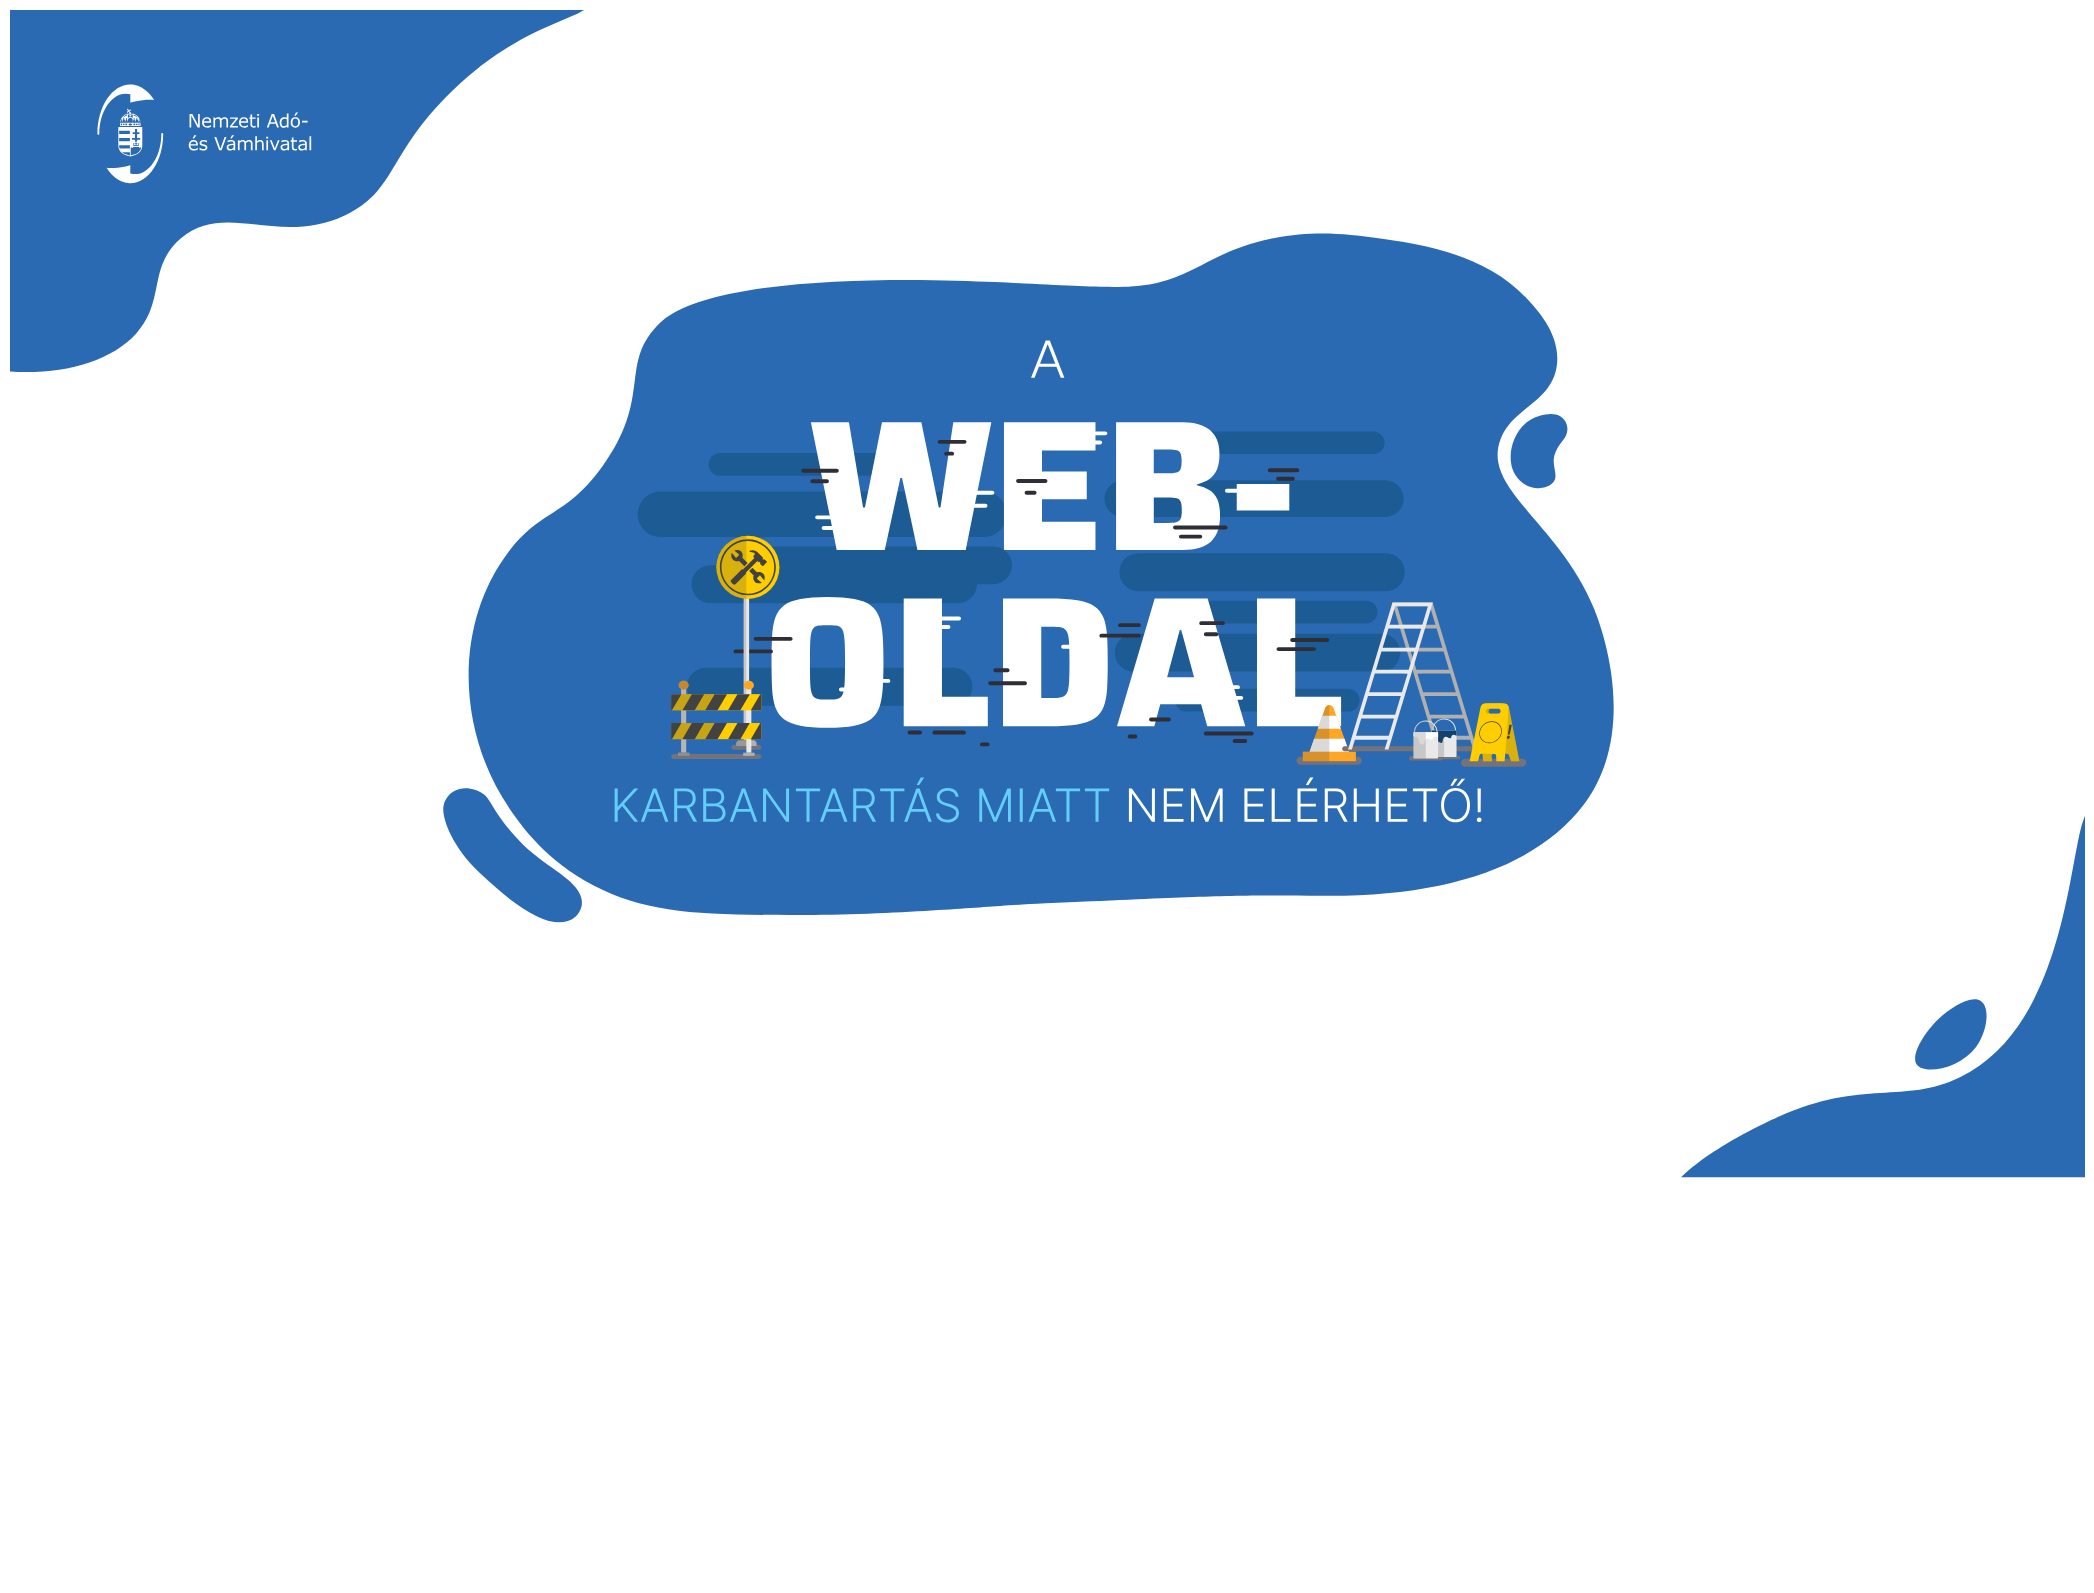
%!PS
<< /PageSize [2094 1593] >> setpagedevice
/rgb { 3 { 255 div 3 1 roll } repeat setrgbcolor } def
/picture { 5 dict begin { /h /w /y /x /name } { exch def } forall
  gsave x y translate w h scale
  w h 8 [w 0 0 h 0 0] name (r) file false 3 colorimage grestore end } def
0 1593 translate 1 -1 scale
4 setmiterlimit
255 255 255 rgb
0 0 2094 1593 rectfill
(img_01.rgb) 10 10 2075 1168 picture
showpage
